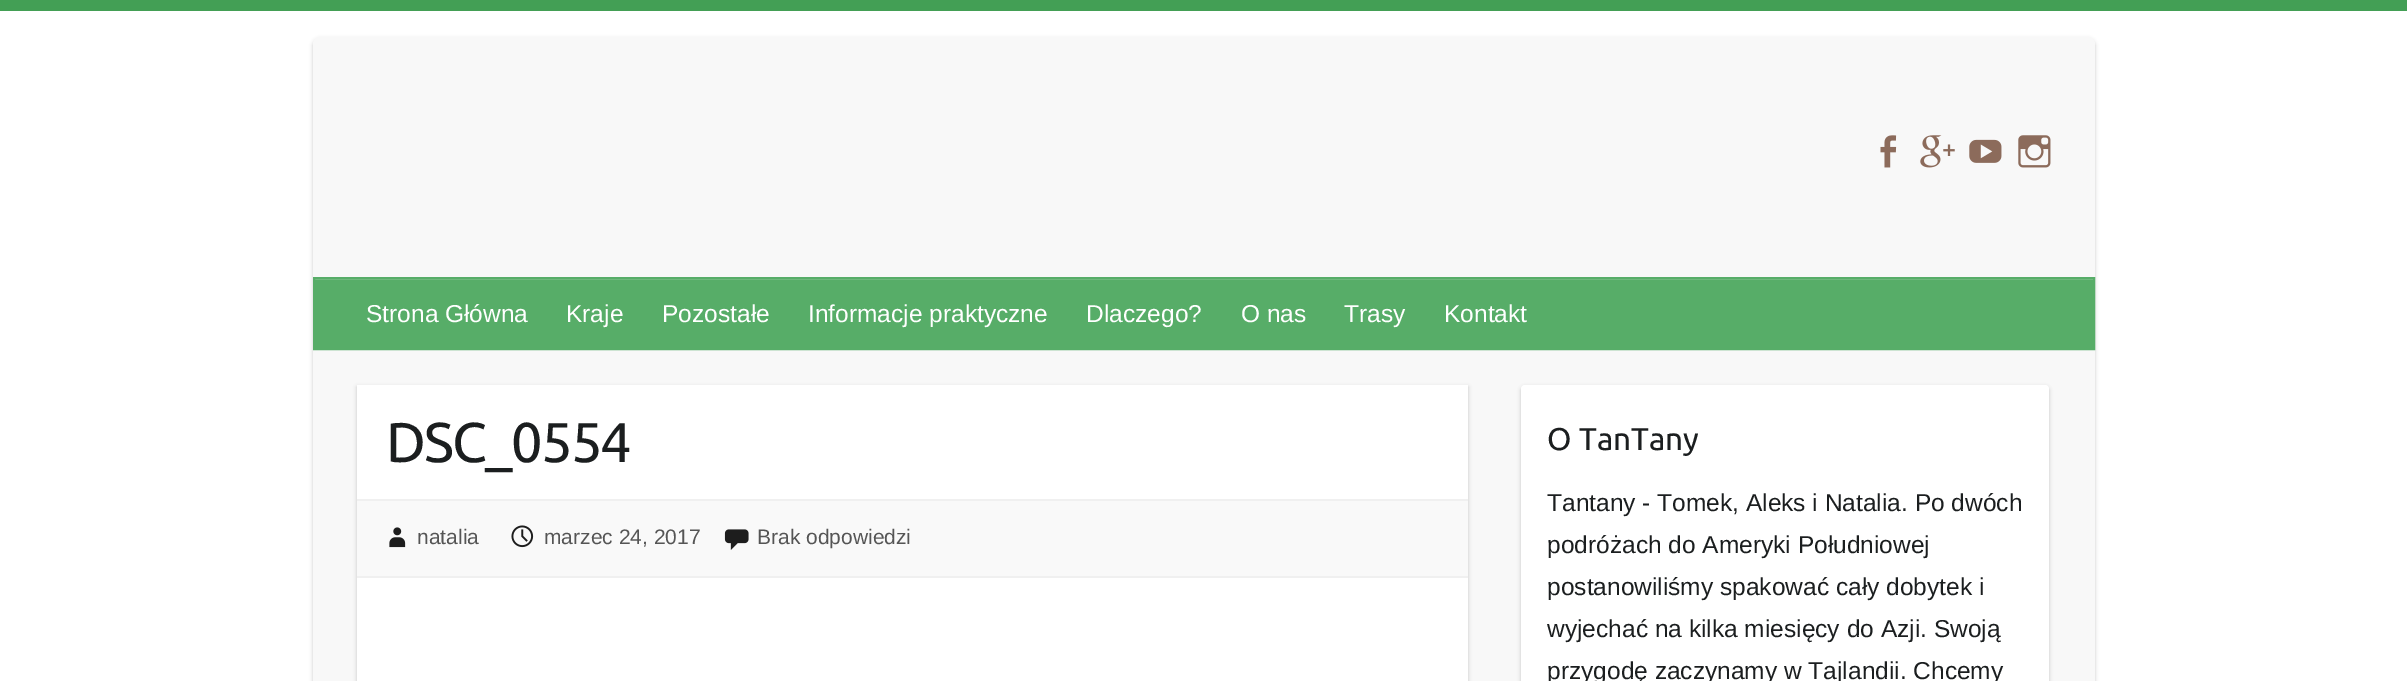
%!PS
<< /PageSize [2407 681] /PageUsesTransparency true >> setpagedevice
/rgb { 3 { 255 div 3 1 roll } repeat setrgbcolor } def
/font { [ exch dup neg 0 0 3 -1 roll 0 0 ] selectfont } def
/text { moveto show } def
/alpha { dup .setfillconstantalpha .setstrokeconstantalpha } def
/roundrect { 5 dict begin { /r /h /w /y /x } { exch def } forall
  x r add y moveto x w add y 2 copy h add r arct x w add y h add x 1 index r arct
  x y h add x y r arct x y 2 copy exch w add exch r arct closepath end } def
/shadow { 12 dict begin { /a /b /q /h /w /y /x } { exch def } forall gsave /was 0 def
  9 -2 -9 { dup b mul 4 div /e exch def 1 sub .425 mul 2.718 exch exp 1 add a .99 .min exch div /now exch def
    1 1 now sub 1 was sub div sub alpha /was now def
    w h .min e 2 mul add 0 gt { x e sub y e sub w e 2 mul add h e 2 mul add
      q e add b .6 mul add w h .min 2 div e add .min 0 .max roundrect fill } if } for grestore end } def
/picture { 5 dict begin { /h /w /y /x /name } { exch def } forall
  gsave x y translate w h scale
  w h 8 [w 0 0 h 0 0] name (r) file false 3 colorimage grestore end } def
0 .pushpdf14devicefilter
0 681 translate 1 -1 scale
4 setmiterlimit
255 255 255 rgb
0 0 2407 681 rectfill
67 159 85 rgb
0 0 2407 11 rectfill
0 0 0 rgb
313 39 1782 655 7 2 0.2 shadow
248 248 248 rgb
313 37 1782 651 7 roundrect fill
(img_01.rgb) 1880 135 17 33 picture
(img_02.rgb) 1920 135 35 33 picture
(img_03.rgb) 1969 139 33 24 picture
(img_04.rgb) 2018 135 33 33 picture
87 173 104 rgb
315 280 1778 68 rectfill
121 189 134 rgb
315 279 1778 1 rectfill
87 173 104 rgb
2 setlinewidth
314 278 1780 71 rectstroke
0 0 0 rgb
357 387 1111 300 0 2 0.2 shadow
255 255 255 rgb
357 385 1111 296 rectfill
249 249 249 rgb
357 501 1111 75 rectfill
240 240 240 rgb
357 499 1111 2 rectfill
357 576 1111 2 rectfill
(img_05.rgb) 389 527 17 21 picture
(img_06.rgb) 511 525 23 23 picture
(img_07.rgb) 724 529 25 21 picture
0 0 0 rgb
1521 387 528 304 4 2 0.2 shadow
255 255 255 rgb
1521 385 528 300 4 roundrect fill
/LiberationSans-Regular 24.5 font
(Strona Główna) 366 322 text
(Kraje) 566 322 text
(Pozostałe) 662 322 text
(Informacje praktyczne) 808 322 text
(Dlaczego?) 1086 322 text
(O nas) 1241 322 text
(Trasy) 1344 322 text
(Kontakt) 1444 322 text
/Ubuntu-Regular 56 font
27 30 31 rgb
386 462 moveto -1.75 0 (DSC_0554) ashow
/LiberationSans-Regular 21 font
85 85 85 rgb
(natalia) 417 544 text
(marzec 24, 2017) 544 544 text
(Brak odpowiedzi) 757 544 text
/Ubuntu-Regular 31.5 font
27 30 31 rgb
(O TanTany) 1547 450 text
/LiberationSans-Regular 24.5 font
(Tantany - Tomek, Aleks i Natalia. Po dwóch) 1547 511 text
(podróżach do Ameryki Południowej) 1547 553 text
(postanowiliśmy spakować cały dobytek i) 1547 595 text
(wyjechać na kilka miesięcy do Azji. Swoją) 1547 637 text
(przygodę zaczynamy w Tajlandii. Chcemy) 1547 679 text
.poppdf14devicefilter showpage
